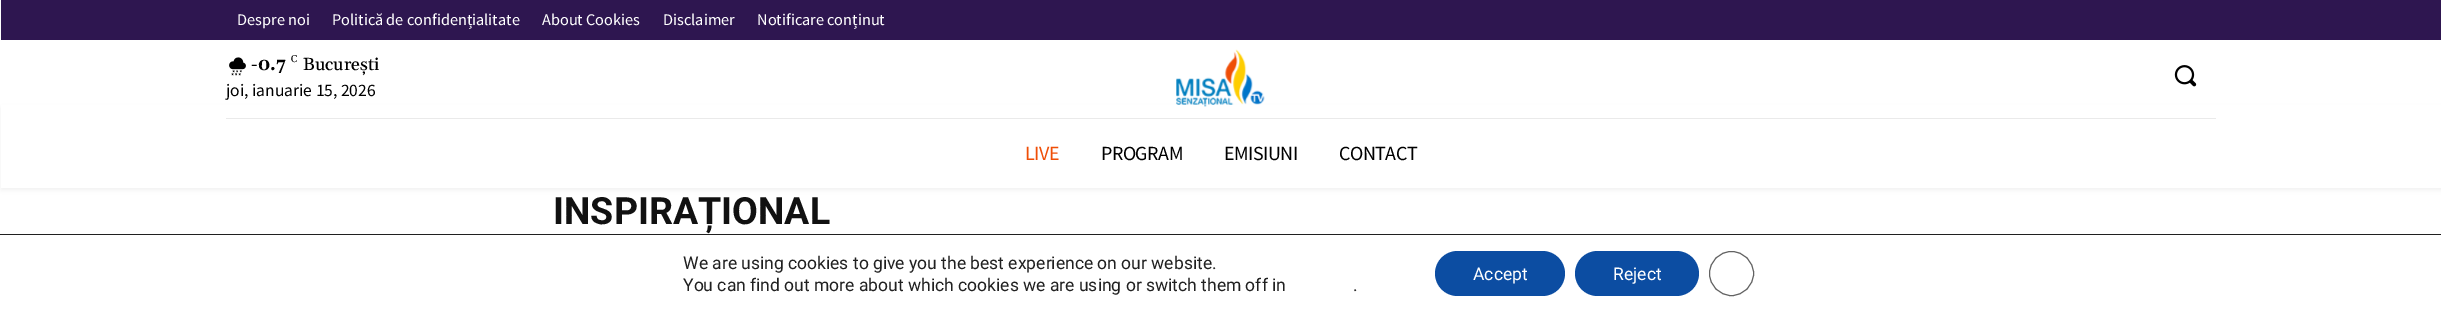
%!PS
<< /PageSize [2441 312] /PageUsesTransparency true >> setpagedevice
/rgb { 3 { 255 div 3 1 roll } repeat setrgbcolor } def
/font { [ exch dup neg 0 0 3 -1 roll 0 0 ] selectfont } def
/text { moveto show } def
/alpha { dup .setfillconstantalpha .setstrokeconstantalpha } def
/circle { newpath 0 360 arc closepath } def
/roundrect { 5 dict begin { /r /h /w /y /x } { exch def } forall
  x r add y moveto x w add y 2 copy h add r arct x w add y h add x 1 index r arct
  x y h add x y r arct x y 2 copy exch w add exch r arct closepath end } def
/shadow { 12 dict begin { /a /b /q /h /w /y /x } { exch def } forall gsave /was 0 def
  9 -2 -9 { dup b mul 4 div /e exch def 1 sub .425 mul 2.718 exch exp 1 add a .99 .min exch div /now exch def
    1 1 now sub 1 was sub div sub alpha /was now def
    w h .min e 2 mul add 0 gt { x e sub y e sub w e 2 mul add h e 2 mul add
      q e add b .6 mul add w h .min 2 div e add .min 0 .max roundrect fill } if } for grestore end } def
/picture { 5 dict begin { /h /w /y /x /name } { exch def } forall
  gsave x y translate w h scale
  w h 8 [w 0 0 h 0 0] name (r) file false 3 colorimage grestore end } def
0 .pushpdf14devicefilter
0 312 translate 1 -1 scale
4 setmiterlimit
255 255 255 rgb
0 0 2441 312 rectfill
46 22 80 rgb
1 0 2440 40 rectfill
(img_01.rgb) 229 57 17 19 picture
(img_02.rgb) 1176 49 89 58 picture
(img_03.rgb) 2174 65 23 22 picture
234 234 234 rgb
226 118 1990 1 rectfill
gsave
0 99 moveto 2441 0 rlineto 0 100 rlineto -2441 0 rlineto closepath 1 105 moveto 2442 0 rlineto 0 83 rlineto -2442 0 rlineto closepath eoclip newpath
0 0 0 rgb
1 108 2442 82 0 2.5 0.06 shadow
grestore
32 32 32 rgb
0 234 2441 1 rectfill
12 77 162 rgb
1435 251 130 45 22.5 roundrect fill
1575 251 124 45 22.5 roundrect fill
98 98 98 rgb
1731.5 273.5 22 circle stroke
/SourceSansPro-Regular 16.25 font
255 255 255 rgb
(Despre noi) 237 25 text
(Politică de confidențialitate) 332 25 text
(About Cookies) 542 25 text
(Disclaimer) 663 25 text
(Notificare conținut) 757 25 text
/Gelasio-Bold 17.5 font
0 0 0 rgb
(-0.7) 251 70 text
/Gelasio-Regular 10 font
(C) 291 62 text
/Gelasio-Medium 17.5 font
(București) 303 70 text
/SourceSansPro-Regular 17.5 font
(joi, ianuarie 15, 2026) 226 96 text
/SourceSansPro-Regular 20 font
239 78 7 rgb
1025 160 moveto -0.5 0 (LIVE) ashow
0 0 0 rgb
1101 160 moveto -0.5 0 (PROGRAM) ashow
1224 160 moveto -0.5 0 (EMISIUNI) ashow
1339 160 moveto -0.5 0 (CONTACT) ashow
/Roboto-Bold 37.5 font
17 17 17 rgb
(INSPIRAȚIONAL) 553 224 text
/Roboto-Regular 17.5 font
32 32 32 rgb
(We are using cookies to give you the best experience on our website.) 683 269 text
(You can find out more about which cookies we are using or switch them off in) 683 291 text
(.) 1353 291 text
255 255 255 rgb
(Accept) 1473 280 text
(Reject) 1613 280 text
.poppdf14devicefilter showpage
